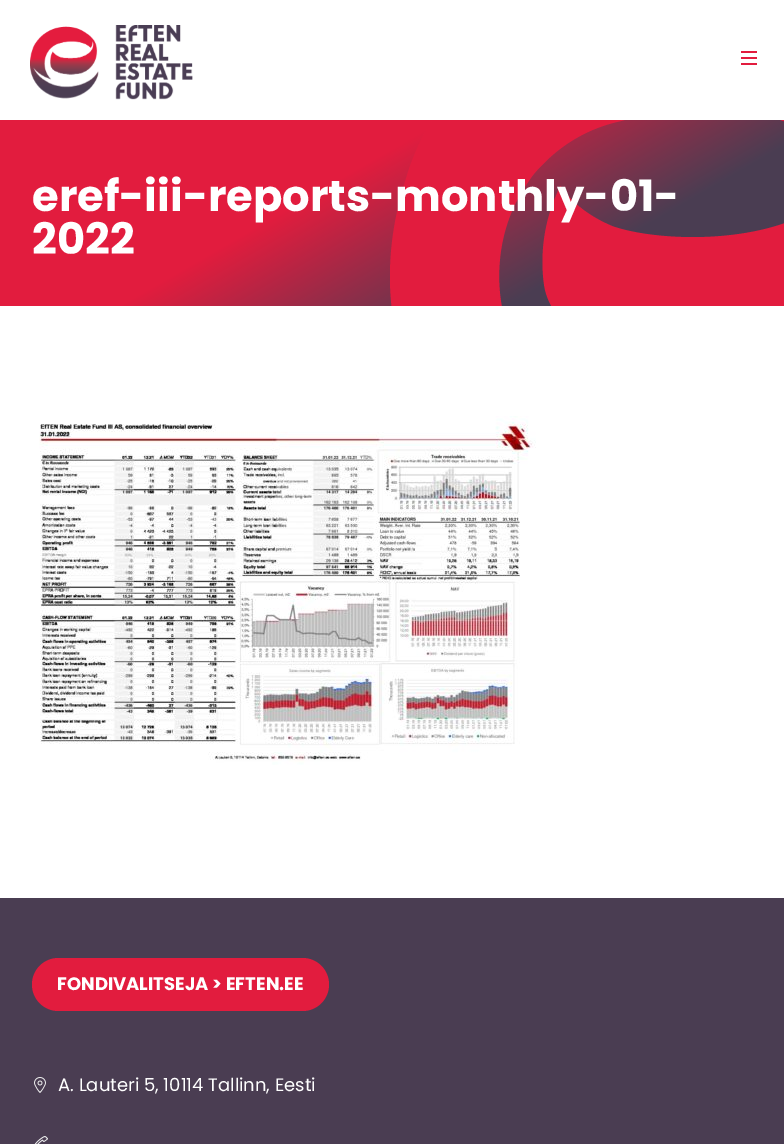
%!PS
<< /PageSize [784 1144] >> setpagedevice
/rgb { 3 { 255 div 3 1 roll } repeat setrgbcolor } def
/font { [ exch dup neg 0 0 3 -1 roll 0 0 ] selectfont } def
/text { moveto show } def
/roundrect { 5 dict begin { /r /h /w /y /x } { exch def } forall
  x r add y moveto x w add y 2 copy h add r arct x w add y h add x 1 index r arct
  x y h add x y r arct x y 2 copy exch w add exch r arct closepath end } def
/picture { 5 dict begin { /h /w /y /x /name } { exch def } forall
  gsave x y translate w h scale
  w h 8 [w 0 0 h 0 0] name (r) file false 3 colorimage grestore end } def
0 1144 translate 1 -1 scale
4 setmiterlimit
255 255 255 rgb
0 0 784 1144 rectfill
(img_01.rgb) 30 25 163 75 picture
226 28 62 rgb
741 57 16 2 rectfill
741 51 16 2 rectfill
741 63 16 2 rectfill
gsave 0 120 moveto 784 0 rlineto 0 186 rlineto -784 0 rlineto closepath clip newpath
<< /ShadingType 2 /ColorSpace /DeviceRGB /Coords [254 -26 530 452] /Extend [true true] /Function << /FunctionType 3 /Domain [0 1] /Functions [<< /FunctionType 2 /Domain [0 1] /C0 [0.886 0.11 0.243] /C1 [0.886 0.11 0.243] /N 1 >> << /FunctionType 2 /Domain [0 1] /C0 [0.886 0.11 0.243] /C1 [0.29 0.239 0.322] /N 1 >> << /FunctionType 2 /Domain [0 1] /C0 [0.29 0.239 0.322] /C1 [0.29 0.239 0.322] /N 1 >>] /Bounds [0.4 0.75] /Encode [0 1 0 1 0 1] >> >> shfill grestore
(img_02.rgb) 390 120 394 186 picture
(img_03.rgb) 39 416 497 349 picture
74 61 82 rgb
0 898 784 246 rectfill
226 28 62 rgb
32 958 297 53 26.5 roundrect fill
(img_04.rgb) 34 1077 12 16 picture
(img_05.rgb) 34 1136 14 8 picture
/Poppins-Bold 43.25 font
255 255 255 rgb
(eref-iii-reports-monthly-01-) 32 211 text
(2022) 32 254 text
/Poppins-Bold 18 font
(FONDIVALITSEJA > EFTEN.EE) 57 990 text
/Poppins-Regular 18 font
(A. Lauteri 5, 10114 Tallinn, Eesti) 58 1091 text
showpage
